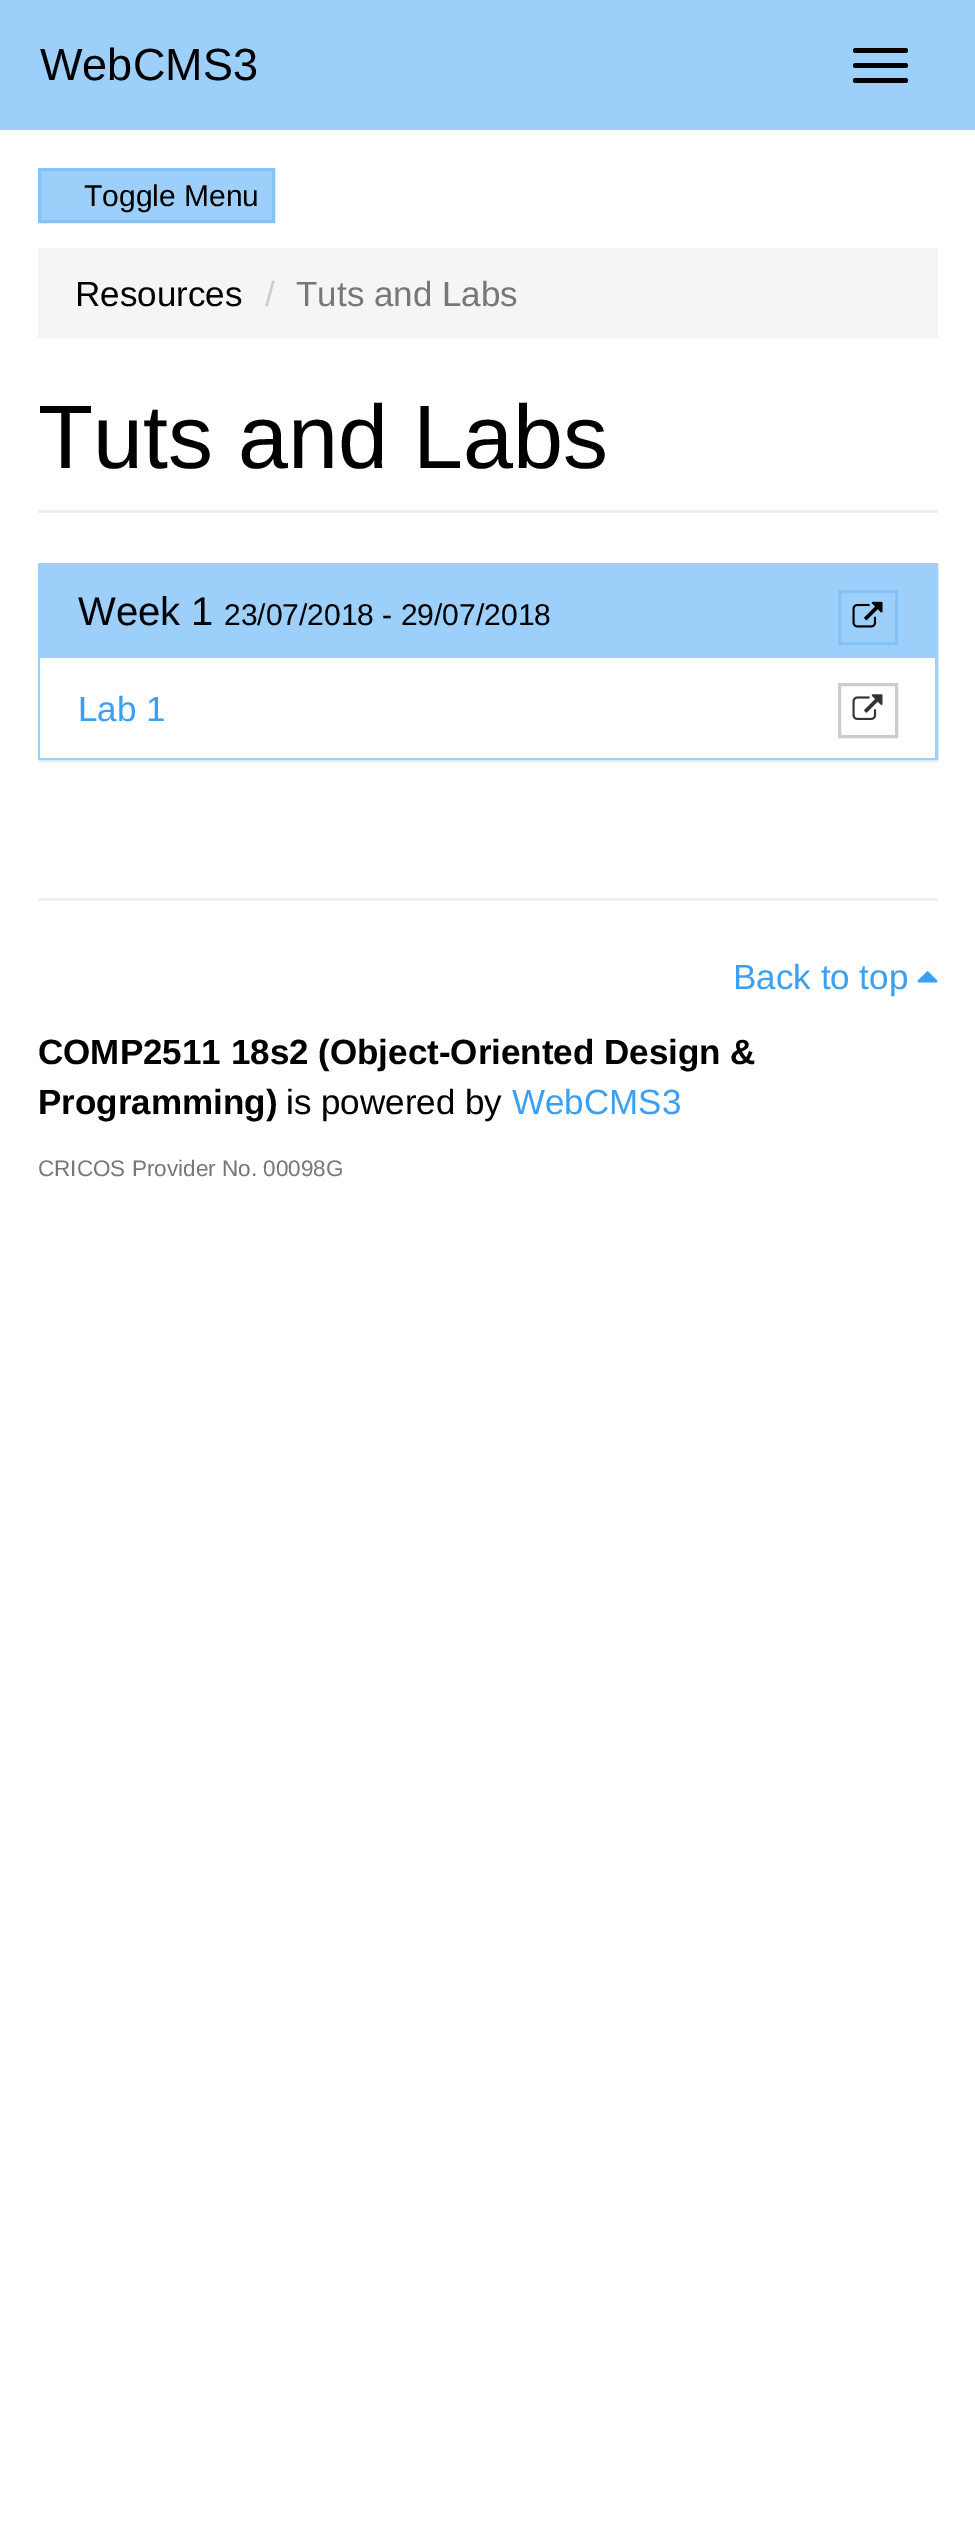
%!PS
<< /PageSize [975 2541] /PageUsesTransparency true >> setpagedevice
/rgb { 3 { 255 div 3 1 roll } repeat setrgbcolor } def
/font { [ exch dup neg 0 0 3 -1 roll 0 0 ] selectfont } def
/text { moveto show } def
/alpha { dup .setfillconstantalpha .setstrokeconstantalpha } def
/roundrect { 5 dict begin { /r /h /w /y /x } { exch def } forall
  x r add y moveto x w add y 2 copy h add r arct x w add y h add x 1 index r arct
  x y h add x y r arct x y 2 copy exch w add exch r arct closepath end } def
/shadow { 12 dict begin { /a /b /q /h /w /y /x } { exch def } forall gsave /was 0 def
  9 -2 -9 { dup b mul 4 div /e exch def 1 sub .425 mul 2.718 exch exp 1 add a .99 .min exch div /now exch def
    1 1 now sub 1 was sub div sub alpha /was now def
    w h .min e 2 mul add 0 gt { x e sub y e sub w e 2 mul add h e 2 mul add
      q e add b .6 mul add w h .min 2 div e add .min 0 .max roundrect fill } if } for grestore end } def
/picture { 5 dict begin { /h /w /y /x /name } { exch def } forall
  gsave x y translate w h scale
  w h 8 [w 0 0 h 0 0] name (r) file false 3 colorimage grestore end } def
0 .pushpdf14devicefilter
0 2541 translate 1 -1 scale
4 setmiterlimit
255 255 255 rgb
0 0 975 2541 rectfill
156 207 249 rgb
0 0 975 130 rectfill
0 0 0 rgb
853 48 55 5 2.5 roundrect fill
853 63 55 5 2.5 roundrect fill
853 78 55 5 2.5 roundrect fill
156 207 249 rgb
39.5 169.5 moveto 234 0 rlineto 0 52 rlineto -234 0 rlineto closepath gsave fill grestore
132 195 248 rgb
3 setlinewidth
stroke
245 245 245 rgb
38 248 900 90 rectfill
238 238 238 rgb
38 510 900 3 rectfill
0 0 0 rgb
38 565 900 198 0 1 0.05 shadow
156 207 249 rgb
39.5 564.5 897 194 rectstroke
41 566 894 92 rectfill
132 195 248 rgb
839.5 591.5 57 52 rectstroke
(img_01.rgb) 852 601 31 27 picture
255 255 255 rgb
40 658 895 100 rectfill
204 204 204 rgb
839.5 684.5 57 52 rectstroke
(img_02.rgb) 852 694 31 26 picture
238 238 238 rgb
38 898 900 3 rectfill
(img_03.rgb) 917 971 21 12 picture
/LiberationSans-Regular 45 font
0 0 0 rgb
(WebCMS3) 40 80 text
/LiberationSans-Regular 30 font
(Toggle Menu) 84 206 text
/LiberationSans-Regular 35 font
(Resources) 75 306 text
204 204 204 rgb
(/) 265 306 text
119 119 119 rgb
(Tuts and Labs) 296 306 text
/LiberationSans-Regular 90 font
0 0 0 rgb
(Tuts and Labs) 38 468 text
/LiberationSans-Regular 40 font
(Week 1) 78 625 text
/LiberationSans-Regular 30 font
(23/07/2018 - 29/07/2018) 224 625 text
/LiberationSans-Regular 35 font
59 160 243 rgb
(Lab 1) 78 721 text
(Back to top) 733 989 text
/LiberationSans-Bold 35 font
0 0 0 rgb
(COMP2511 18s2 \(Object-Oriented Design &) 38 1064 text
(Programming\)) 38 1114 text
/LiberationSans-Regular 35 font
(is powered by) 286 1114 text
59 160 243 rgb
(WebCMS3) 512 1114 text
/LiberationSans-Regular 22.5 font
119 119 119 rgb
(CRICOS Provider No. 00098G) 38 1176 text
.poppdf14devicefilter showpage
